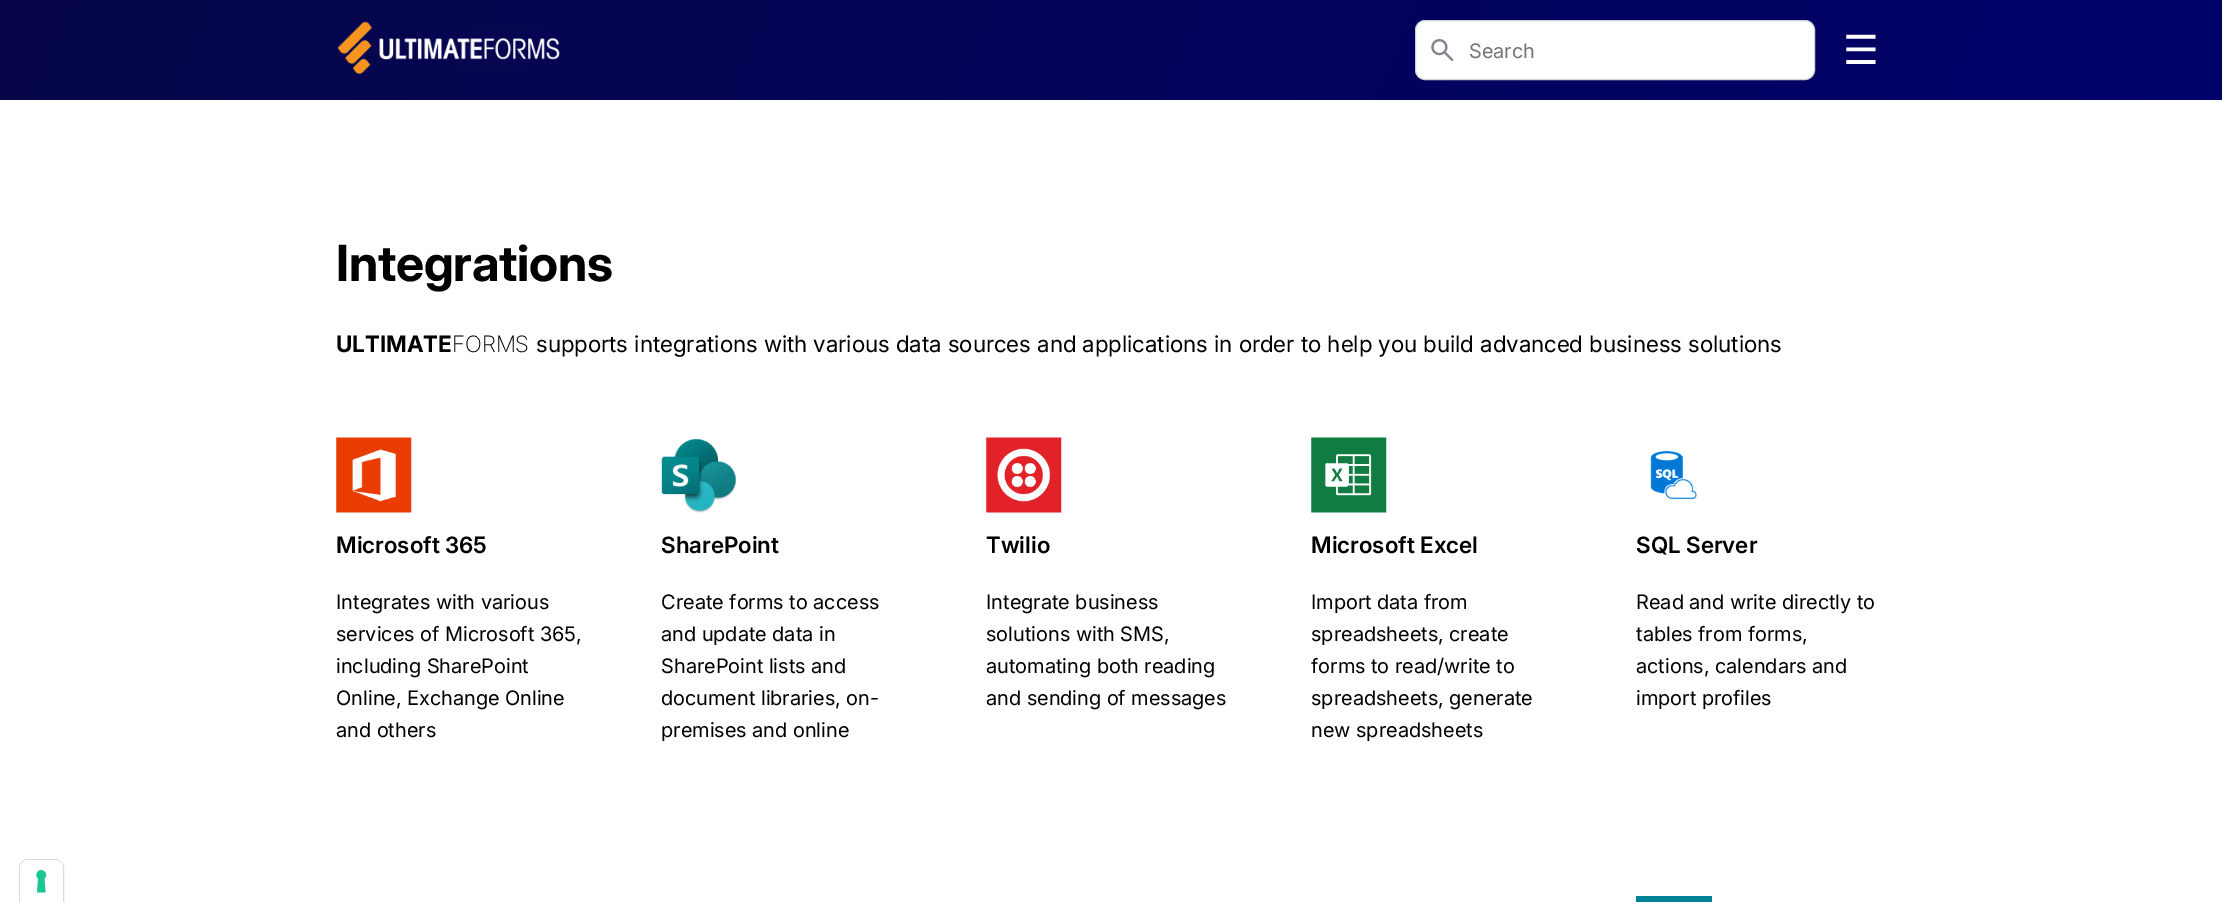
%!PS
<< /PageSize [2222 902] >> setpagedevice
/rgb { 3 { 255 div 3 1 roll } repeat setrgbcolor } def
/font { [ exch dup neg 0 0 3 -1 roll 0 0 ] selectfont } def
/text { moveto show } def
/roundrect { 5 dict begin { /r /h /w /y /x } { exch def } forall
  x r add y moveto x w add y 2 copy h add r arct x w add y h add x 1 index r arct
  x y h add x y r arct x y 2 copy exch w add exch r arct closepath end } def
/picture { 5 dict begin { /h /w /y /x /name } { exch def } forall
  gsave x y translate w h scale
  w h 8 [w 0 0 h 0 0] name (r) file false 3 colorimage grestore end } def
0 902 translate 1 -1 scale
4 setmiterlimit
255 255 255 rgb
0 0 2222 902 rectfill
gsave 0 0 moveto 2222 0 rlineto 0 100 rlineto -2222 0 rlineto closepath clip newpath
<< /ShadingType 2 /ColorSpace /DeviceRGB /Coords [154 -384 2062 481] /Extend [true true] /Function << /FunctionType 2 /Domain [0 1] /C0 [0.027 0.027 0.286] /C1 [0.004 0.004 0.42] /N 1 >> >> shfill grestore
(img_01.rgb) 337 21 223 54 picture
1415.5 20.5 399 59 9.5 roundrect gsave fill grestore
205 208 212 rgb
stroke
(img_02.rgb) 1431 39 23 22 picture
(img_03.rgb) 336 437 76 76 picture
(img_04.rgb) 661 439 75 74 picture
(img_05.rgb) 986 437 76 76 picture
(img_06.rgb) 1311 437 76 76 picture
(img_07.rgb) 1650 451 47 48 picture
0 130 153 rgb
1636 896 76 6 rectfill
217 217 217 rgb
28 859.5 moveto 27 0 rlineto 4.5 0 8.5 4 8.5 8.5 rcurveto 0 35.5 rlineto -44 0 rlineto 0 -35.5 rlineto 0 -4.5 4 -8.5 8.5 -8.5 rcurveto closepath stroke
255 255 255 rgb
28 860 moveto 27 0 rlineto 4.5 0 8 3.5 8 8 rcurveto 0 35 rlineto -43 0 rlineto 0 -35 rlineto 0 -4.5 3.5 -8 8 -8 rcurveto closepath fill
(img_08.rgb) 36 870 11 23 picture
/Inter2-Regular 20 font
117 117 117 rgb
(Search) 1469 58 text
/DejaVuSans-Regular 40 font
255 255 255 rgb
(☰) 1843 64 text
/Inter-Bold 50 font
0 0 0 rgb
336 281 moveto -0.25 0 (Integrations) ashow
/Inter2-Bold 22.5 font
(ULTIMATE) 336 352 text
/Inter-ExtraLight 22.5 font
(FORMS) 452 352 text
/Inter-Regular 22.5 font
(supports integrations with various data sources and applications in order to help you build advanced business solutions) 536 352 text
/Inter-SemiBold 22.5 font
(Microsoft 365) 336 553 text
/Inter2-Regular 20 font
(Integrates with various) 336 609 text
(services of Microsoft 365,) 336 641 text
(including SharePoint) 336 673 text
(Online, Exchange Online) 336 705 text
(and others) 336 737 text
/Inter-SemiBold 22.5 font
(SharePoint) 661 553 text
/Inter2-Regular 20 font
(Create forms to access) 661 609 text
(and update data in) 661 641 text
(SharePoint lists and) 661 673 text
(document libraries, on-) 661 705 text
(premises and online) 661 737 text
/Inter-SemiBold 22.5 font
(Twilio) 986 553 text
/Inter2-Regular 20 font
(Integrate business) 986 609 text
(solutions with SMS,) 986 641 text
(automating both reading) 986 673 text
(and sending of messages) 986 705 text
/Inter-SemiBold 22.5 font
(Microsoft Excel) 1311 553 text
/Inter2-Regular 20 font
(Import data from) 1311 609 text
(spreadsheets, create) 1311 641 text
(forms to read/write to) 1311 673 text
(spreadsheets, generate) 1311 705 text
(new spreadsheets) 1311 737 text
/Inter-SemiBold 22.5 font
(SQL Server) 1636 553 text
/Inter2-Regular 20 font
(Read and write directly to) 1636 609 text
(tables from forms,) 1636 641 text
(actions, calendars and) 1636 673 text
(import profiles) 1636 705 text
showpage
